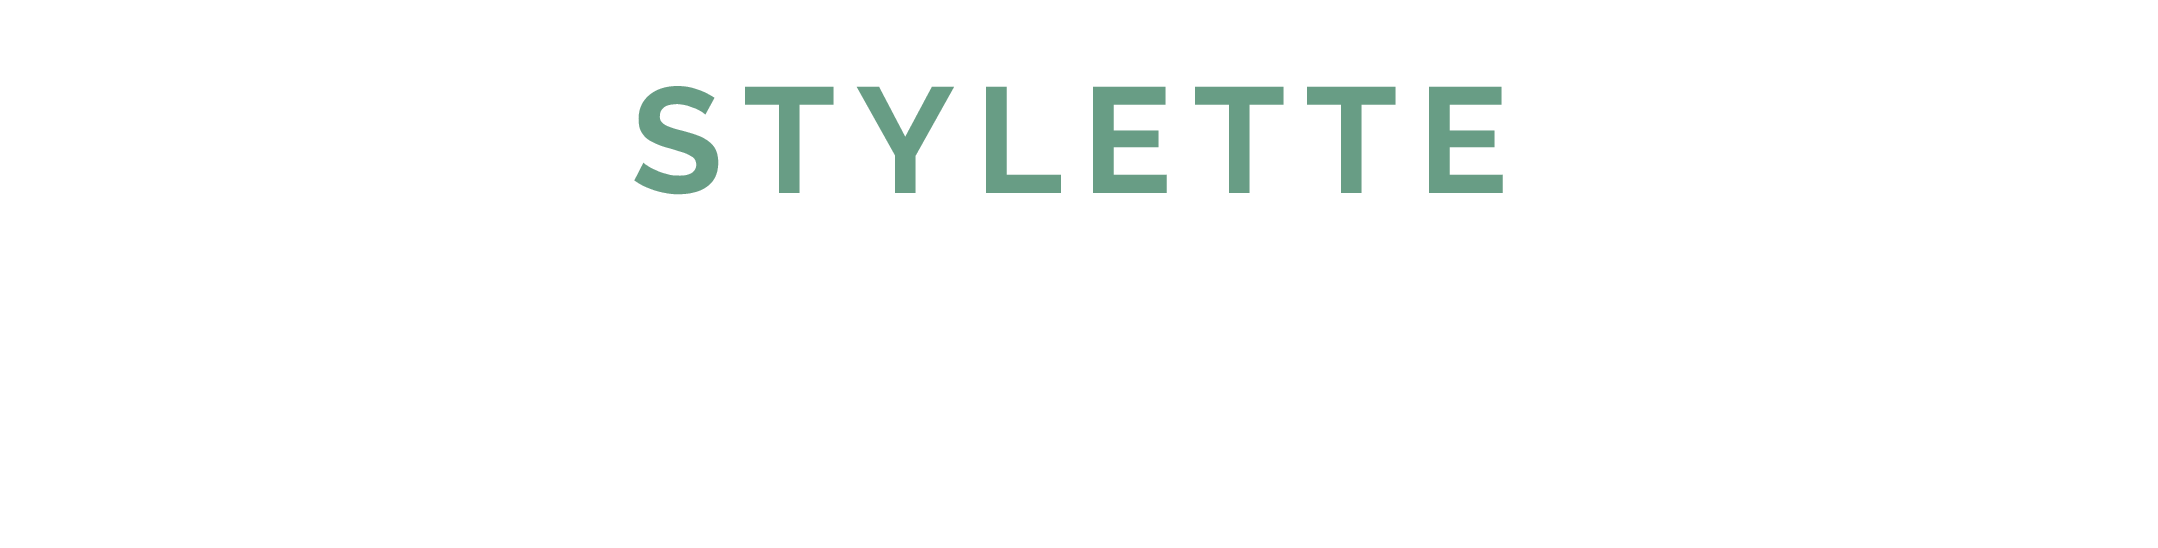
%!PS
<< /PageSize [2158 548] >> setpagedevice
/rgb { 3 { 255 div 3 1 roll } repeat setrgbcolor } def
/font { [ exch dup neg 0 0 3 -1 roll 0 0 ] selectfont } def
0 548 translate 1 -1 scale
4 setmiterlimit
255 255 255 rgb
0 0 2158 548 rectfill
/Raleway-Bold 150 font
104 157 133 rgb
631 193 moveto 20 0 (STYLETTE) ashow
showpage
